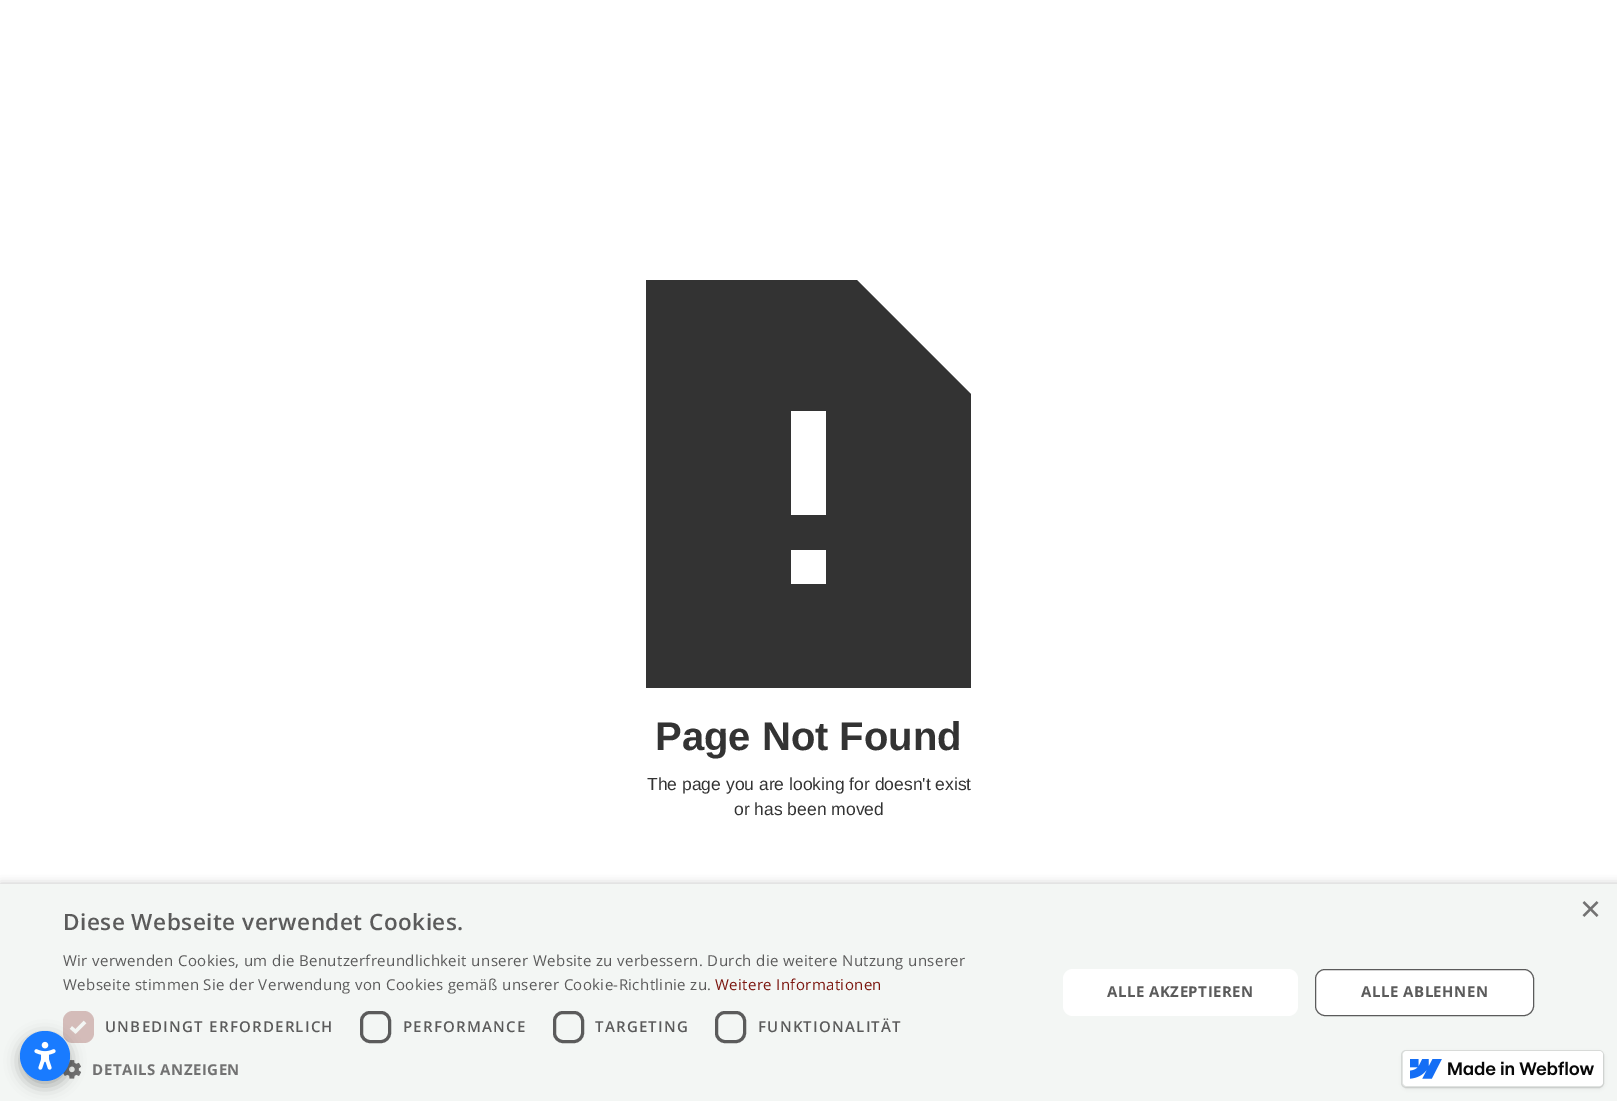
%!PS
<< /PageSize [1617 1101] /PageUsesTransparency true >> setpagedevice
/rgb { 3 { 255 div 3 1 roll } repeat setrgbcolor } def
/font { [ exch dup neg 0 0 3 -1 roll 0 0 ] selectfont } def
/text { moveto show } def
/alpha { dup .setfillconstantalpha .setstrokeconstantalpha } def
/circle { newpath 0 360 arc closepath } def
/roundrect { 5 dict begin { /r /h /w /y /x } { exch def } forall
  x r add y moveto x w add y 2 copy h add r arct x w add y h add x 1 index r arct
  x y h add x y r arct x y 2 copy exch w add exch r arct closepath end } def
/shadow { 12 dict begin { /a /b /q /h /w /y /x } { exch def } forall gsave /was 0 def
  9 -2 -9 { dup b mul 4 div /e exch def 1 sub .425 mul 2.718 exch exp 1 add a .99 .min exch div /now exch def
    1 1 now sub 1 was sub div sub alpha /was now def
    w h .min e 2 mul add 0 gt { x e sub y e sub w e 2 mul add h e 2 mul add
      q e add b .6 mul add w h .min 2 div e add .min 0 .max roundrect fill } if } for grestore end } def
/picture { 5 dict begin { /h /w /y /x /name } { exch def } forall
  gsave x y translate w h scale
  w h 8 [w 0 0 h 0 0] name (r) file false 3 colorimage grestore end } def
0 .pushpdf14devicefilter
0 1101 translate 1 -1 scale
4 setmiterlimit
255 255 255 rgb
0 0 1617 1101 rectfill
51 51 51 rgb
646 280 moveto 211 0 rlineto 114 114 rlineto 0 294 rlineto -325 0 rlineto closepath 791 411 moveto 35 0 rlineto 0 104 rlineto -35 0 rlineto closepath 791 550 moveto 35 0 rlineto 0 34 rlineto -35 0 rlineto closepath eofill
0 0 0 rgb
1 886 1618 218 0 5 0.35 shadow
243 246 244 rgb
0 884 1617 217 rectfill
212 188 185 rgb
63 1011 31 32 10 roundrect fill
243 246 244 rgb
3.3 setlinewidth
71 1027.5 moveto 4.5 4 rlineto 9.5 -9.5 rlineto stroke
(img_02.rgb) 63 1060 18 19 picture
0 0 0 rgb
20 1036 50 50 25 7.5 0.3 shadow
25 123 255 rgb
45 1056 25 circle fill
(img_01.rgb) 34 1041 22 29 picture
91 91 91 rgb
3 setlinewidth
361.5 1012.5 28 29 8.5 roundrect stroke
554.5 1012.5 28 29 8.5 roundrect stroke
716.5 1012.5 28 29 8.5 roundrect stroke
255 255 255 rgb
1063 969 235 47 10 roundrect fill
1315.5 969.5 218 46 9.5 roundrect gsave fill grestore
91 91 91 rgb
1 setlinewidth
stroke
0 0 0 rgb
1403 1053 200 35 4 2 0.1 shadow
0.1 alpha
1401.5 1050.5 202 37 4.5 roundrect stroke
1 alpha
255 255 255 rgb
1403 1051 200 35 4 roundrect fill
(img_03.rgb) 1410 1059 32 20 picture
(img_04.rgb) 1448 1061 146 15 picture
/LiberationSans-Bold 40 font
51 51 51 rgb
(Page Not Found) 655 750 text
/LiberationSans-Regular 17.5 font
(The page you are looking for doesn't exist) 647 790 text
(or has been moved) 734 815 text
/LiberationSans-Regular 36 font
114 114 114 rgb
(×) 1580 921 text
/OpenSans-SemiBold 22.5 font
91 91 91 rgb
63 930 moveto 0.5 0 (Diese Webseite verwendet Cookies.) ashow
/OpenSans-Regular 15 font
63 966 moveto 0.38 0 (Wir verwenden Cookies, um die Benutzerfreundlichkeit unserer Website zu verbessern. Durch die weitere Nutzung unserer) ashow
63 990 moveto 0.38 0 (Webseite stimmen Sie der Verwendung von Cookies gemäß unserer Cookie-Richtlinie zu.) ashow
124 23 16 rgb
715 990 moveto 0.38 0 (Weitere Informationen) ashow
/OpenSans-SemiBold 15 font
91 91 91 rgb
105 1032 moveto 1.25 0 (UNBEDINGT ERFORDERLICH) ashow
403 1032 moveto 1.25 0 (PERFORMANCE) ashow
595 1032 moveto 1.25 0 (TARGETING) ashow
758 1032 moveto 1.25 0 (FUNKTIONALITÄT) ashow
/OpenSans-Bold 15 font
114 114 114 rgb
92 1075 moveto 0.5 0 (DETAILS ANZEIGEN) ashow
91 91 91 rgb
1107 997 moveto 0.5 0 (ALLE AKZEPTIEREN) ashow
1361 997 moveto 0.5 0 (ALLE ABLEHNEN) ashow
.poppdf14devicefilter showpage
